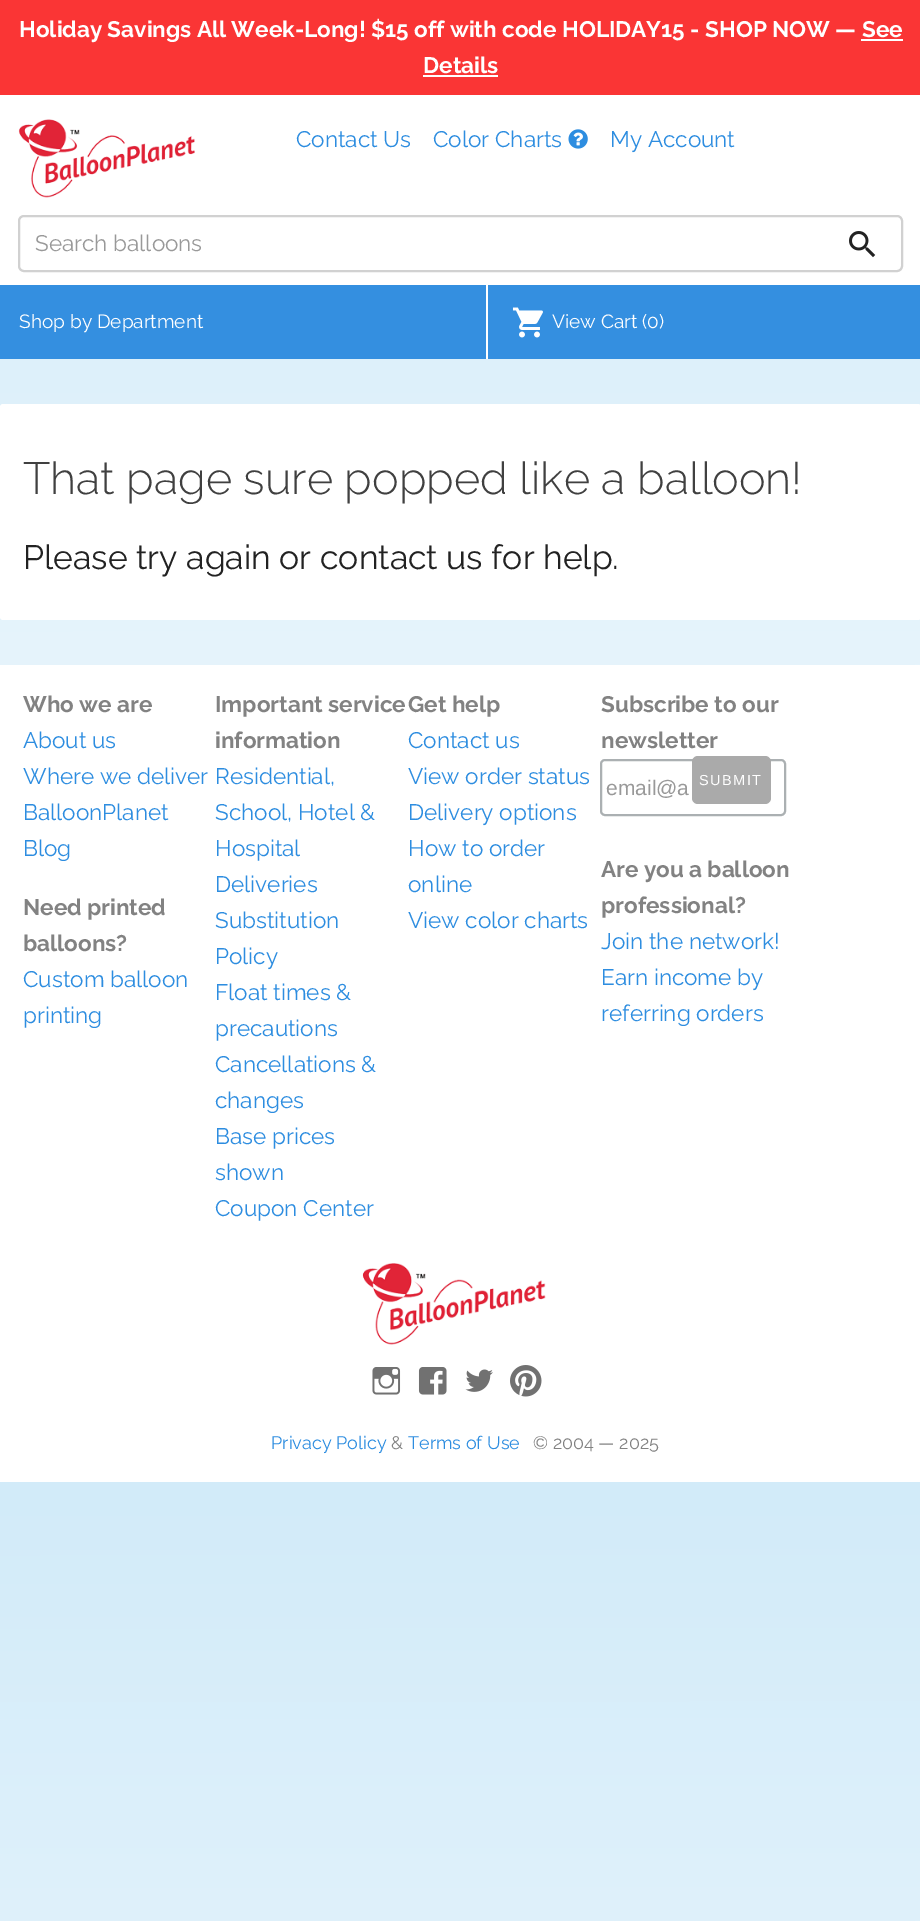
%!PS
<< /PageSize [920 1921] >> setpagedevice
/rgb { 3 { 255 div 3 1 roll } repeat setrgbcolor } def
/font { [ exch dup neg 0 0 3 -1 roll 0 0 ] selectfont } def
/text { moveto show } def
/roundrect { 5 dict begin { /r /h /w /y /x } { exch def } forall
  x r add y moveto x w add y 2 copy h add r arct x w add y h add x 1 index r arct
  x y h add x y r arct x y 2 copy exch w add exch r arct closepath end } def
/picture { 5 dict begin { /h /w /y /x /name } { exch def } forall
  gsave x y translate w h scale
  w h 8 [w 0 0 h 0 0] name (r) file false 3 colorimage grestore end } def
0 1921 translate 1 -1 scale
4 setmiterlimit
255 255 255 rgb
0 0 920 1921 rectfill
gsave 0 359 moveto 920 0 rlineto 0 306 rlineto -920 0 rlineto closepath clip newpath
<< /ShadingType 2 /ColorSpace /DeviceRGB /Coords [460 0 461 1482] /Extend [true true] /Function << /FunctionType 2 /Domain [0 1] /C0 [0.824 0.922 0.976] /C1 [0.996 1 1] /N 1 >> >> shfill grestore
gsave 0 1482 moveto 920 0 rlineto 0 439 rlineto -920 0 rlineto closepath clip newpath
<< /ShadingType 2 /ColorSpace /DeviceRGB /Coords [460 1482 461 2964] /Extend [true true] /Function << /FunctionType 2 /Domain [0 1] /C0 [0.824 0.922 0.976] /C1 [0.996 1 1] /N 1 >> >> shfill grestore
250 53 53 rgb
0 0 920 95 rectfill
255 255 255 rgb
861 39 42 2 rectfill
423 75 75 2 rectfill
(img_01.rgb) 18 119 177 79 picture
(img_02.rgb) 568 129 20 20 picture
209 209 209 rgb
2 setlinewidth
19 216 883 55 5 roundrect stroke
(img_03.rgb) 849 231 27 27 picture
52 143 224 rgb
0 285 920 74 rectfill
255 255 255 rgb
486 285 2 74 rectfill
(img_04.rgb) 512 307 31 31 picture
0 404 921 216 3 roundrect fill
171 176 178 rgb
601 760 184 55 4 roundrect stroke
170 170 170 rgb
692 756 79 48 6 roundrect fill
(img_05.rgb) 362 1263 184 82 picture
(img_06.rgb) 372 1367 29 28 picture
(img_07.rgb) 418 1367 29 28 picture
(img_08.rgb) 465 1369 28 23 picture
(img_09.rgb) 510 1365 32 32 picture
/Raleway-Bold 22.5 font
255 255 255 rgb
(Holiday Savings All Week-Long! $15 off with code HOLIDAY15 - SHOP NOW —) 19 37 text
(See) 862 37 text
(Details) 423 73 text
/Raleway-Regular 22.5 font
45 141 224 rgb
(Contact Us) 296 147 text
(Color Charts) 433 147 text
(My Account) 610 147 text
153 153 153 rgb
(Search balloons) 35 251 text
/Raleway-Regular 19.1 font
255 255 255 rgb
(Shop by Department) 19 328 text
(View Cart \(0\)) 552 328 text
/Raleway-Light 45 font
64 64 64 rgb
(That page sure popped like a balloon!) 23 494 text
/Raleway-Regular 33.75 font
34 34 34 rgb
(Please try again or contact us for help.) 23 569 text
/Raleway-Bold 22.5 font
130 130 130 rgb
(Who we are) 23 712 text
/Raleway-Regular 22.5 font
45 141 224 rgb
(About us) 23 748 text
(Where we deliver) 23 784 text
(BalloonPlanet) 23 820 text
(Blog) 23 856 text
/Raleway-Bold 22.5 font
130 130 130 rgb
(Need printed) 23 915 text
(balloons?) 23 951 text
/Raleway-Regular 22.5 font
45 141 224 rgb
(Custom balloon) 23 987 text
(printing) 23 1023 text
/Raleway-Bold 22.5 font
130 130 130 rgb
(Important service) 215 712 text
(information) 215 748 text
/Raleway-Regular 22.5 font
45 141 224 rgb
(Residential,) 215 784 text
(School, Hotel &) 215 820 text
(Hospital) 215 856 text
(Deliveries) 215 892 text
(Substitution) 215 928 text
(Policy) 215 964 text
(Float times &) 215 1000 text
(precautions) 215 1036 text
(Cancellations &) 215 1072 text
(changes) 215 1108 text
(Base prices) 215 1144 text
(shown) 215 1180 text
(Coupon Center) 215 1216 text
/Raleway-Bold 22.5 font
130 130 130 rgb
(Get help) 408 712 text
/Raleway-Regular 22.5 font
45 141 224 rgb
(Contact us) 408 748 text
(View order status) 408 784 text
(Delivery options) 408 820 text
(How to order) 408 856 text
(online) 408 892 text
(View color charts) 408 928 text
/Raleway-Bold 22.5 font
130 130 130 rgb
(Subscribe to our) 601 712 text
(newsletter) 601 748 text
/LiberationSans-Regular 21 font
153 153 153 rgb
(email@a) 606 795 text
/LiberationSans-Regular 14.5 font
255 255 255 rgb
699 785 moveto 1.5 0 (SUBMIT) ashow
/Raleway-Bold 22.5 font
130 130 130 rgb
(Are you a balloon) 601 877 text
(professional?) 601 913 text
/Raleway-Regular 22.5 font
45 141 224 rgb
(Join the network!) 601 949 text
(Earn income by) 601 985 text
(referring orders) 601 1021 text
/Raleway-Regular 18 font
(Privacy Policy) 271 1449 text
130 130 130 rgb
(&) 391 1449 text
45 141 224 rgb
(Terms of Use) 408 1449 text
130 130 130 rgb
(© 2004 — 2025) 533 1449 text
showpage
